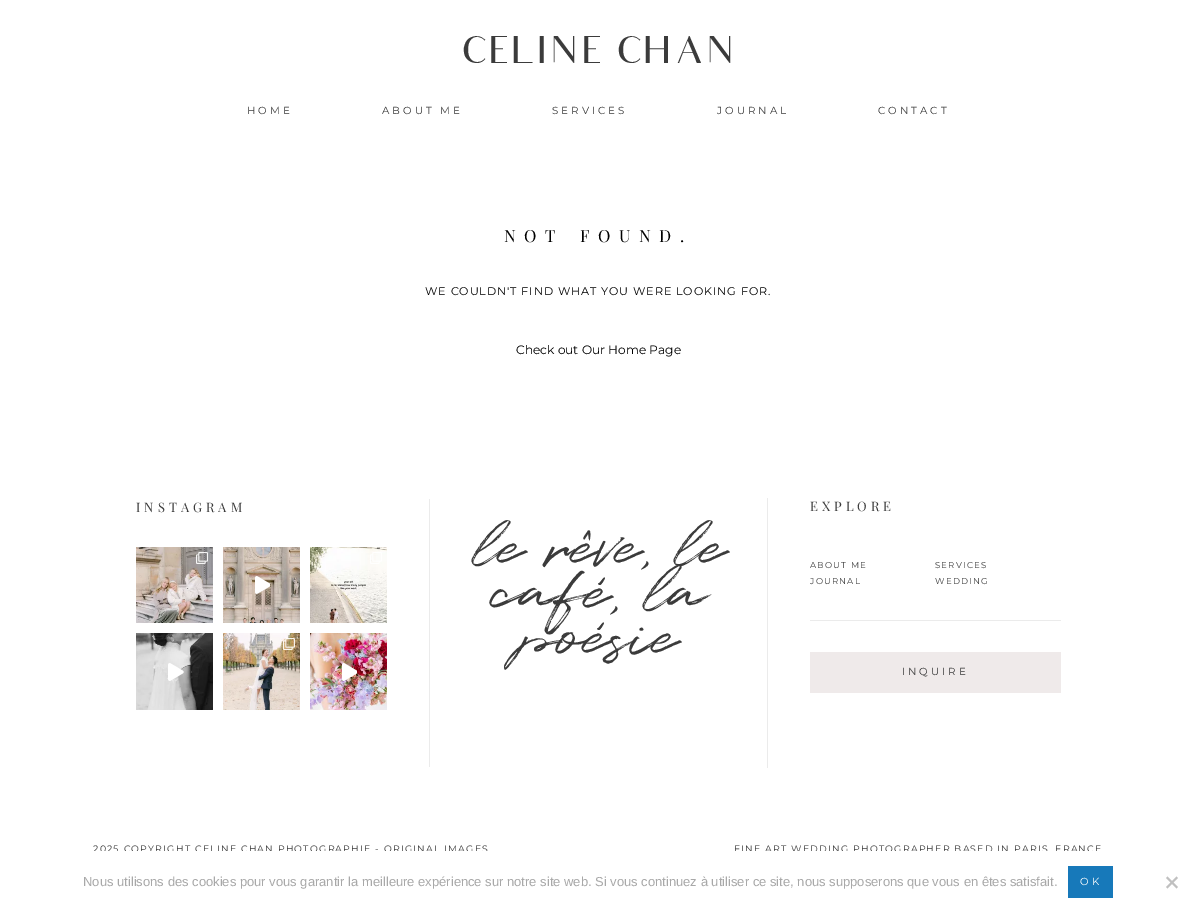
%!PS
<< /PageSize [1196 913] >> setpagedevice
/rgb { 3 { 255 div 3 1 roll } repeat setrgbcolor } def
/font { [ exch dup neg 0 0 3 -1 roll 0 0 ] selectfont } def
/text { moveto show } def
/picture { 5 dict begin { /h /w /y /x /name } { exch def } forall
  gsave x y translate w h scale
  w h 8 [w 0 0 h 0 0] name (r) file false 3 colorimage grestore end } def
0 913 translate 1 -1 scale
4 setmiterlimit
255 255 255 rgb
0 0 1196 913 rectfill
235 235 235 rgb
429 499 1 268 rectfill
(img_01.rgb) 136 547 77 76 picture
(img_02.rgb) 196 552 12 12 picture
(img_03.rgb) 223 547 77 76 picture
(img_04.rgb) 255 576 15 18 picture
(img_05.rgb) 310 547 77 76 picture
(img_06.rgb) 370 552 12 12 picture
(img_07.rgb) 136 633 77 77 picture
(img_08.rgb) 168 663 16 18 picture
(img_09.rgb) 223 633 77 77 picture
(img_10.rgb) 283 638 12 12 picture
(img_11.rgb) 310 633 77 77 picture
(img_12.rgb) 342 663 15 18 picture
767 498 1 270 rectfill
810 620 251 1 rectfill
239 234 234 rgb
810 652 251 41 rectfill
23 121 186 rgb
1068 866 45 32 rectfill
192 192 192 rgb
1176.5 876.5 moveto 1.5 1.5 rlineto -10.5 10.5 rlineto -1.5 -1.5 rlineto closepath fill
1166 878 moveto 1.5 -1.5 rlineto 10.5 10.5 rlineto -1.5 1.5 rlineto closepath fill
/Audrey-Regular 37.5 font
59 59 59 rgb
461 63 moveto 1.9 0 (CELINE CHAN) ashow
/Montserrat-Thin 10.25 font
247 114 moveto 3 0 (HOME) ashow
382 114 moveto 3 0 (ABOUT ME) ashow
552 114 moveto 3 0 (SERVICES) ashow
717 114 moveto 3 0 (JOURNAL) ashow
878 114 moveto 3 0 (CONTACT) ashow
/PlayfairDisplay-Regular 16.75 font
0 0 0 rgb
504 242 moveto 3 0 32 8.5 0 (NOT FOUND.) awidthshow
/Montserrat-Thin 11.2 font
425 295 moveto 0.9 0 (WE COULDN'T FIND WHAT YOU WERE LOOKING FOR.) ashow
/Montserrat-Thin 12.2 font
(Check out Our Home Page) 516 354 text
/PlayfairDisplay-Regular 13 font
59 59 59 rgb
136 512 moveto 4 0 (INSTAGRAM) ashow
810 511 moveto 4 0 (EXPLORE) ashow
/Montserrat-Thin 8.5 font
810 568 moveto 1.25 0 (ABOUT ME) ashow
935 568 moveto 1.25 0 (SERVICES) ashow
810 584 moveto 1.25 0 (JOURNAL) ashow
935 584 moveto 1.25 0 (WEDDING) ashow
/Montserrat-Thin 10.25 font
902 675 moveto 3 0 (INQUIRE) ashow
/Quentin-Regular 64.5 font
(le rêve, le) 474 565 text
(café, la) 491 610 text
(poésie) 521 655 text
/Montserrat-Thin 9.35 font
93 852 moveto 1.2 0 (2025 COPYRIGHT CELINE CHAN PHOTOGRAPHIE - ORIGINAL IMAGES) ashow
734 852 moveto 1.2 0 (FINE ART WEDDING PHOTOGRAPHER BASED IN PARIS, FRANCE) ashow
255 255 255 rgb
93 851 1008 3 rectfill
/LiberationSans-Regular 13 font
168 168 168 rgb
(Nous utilisons des cookies pour vous garantir la meilleure expérience sur notre site web. Si vous continuez à utiliser ce site, nous supposerons que vous en êtes satisfait.) 83 886 text
/Montserrat-Thin 10.25 font
254 254 254 rgb
1080 885 moveto 3 0 (OK) ashow
showpage
